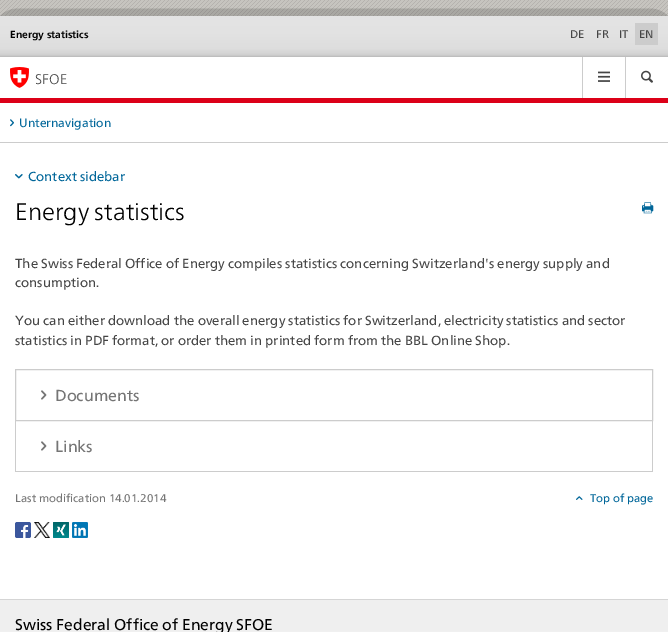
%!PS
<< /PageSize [668 632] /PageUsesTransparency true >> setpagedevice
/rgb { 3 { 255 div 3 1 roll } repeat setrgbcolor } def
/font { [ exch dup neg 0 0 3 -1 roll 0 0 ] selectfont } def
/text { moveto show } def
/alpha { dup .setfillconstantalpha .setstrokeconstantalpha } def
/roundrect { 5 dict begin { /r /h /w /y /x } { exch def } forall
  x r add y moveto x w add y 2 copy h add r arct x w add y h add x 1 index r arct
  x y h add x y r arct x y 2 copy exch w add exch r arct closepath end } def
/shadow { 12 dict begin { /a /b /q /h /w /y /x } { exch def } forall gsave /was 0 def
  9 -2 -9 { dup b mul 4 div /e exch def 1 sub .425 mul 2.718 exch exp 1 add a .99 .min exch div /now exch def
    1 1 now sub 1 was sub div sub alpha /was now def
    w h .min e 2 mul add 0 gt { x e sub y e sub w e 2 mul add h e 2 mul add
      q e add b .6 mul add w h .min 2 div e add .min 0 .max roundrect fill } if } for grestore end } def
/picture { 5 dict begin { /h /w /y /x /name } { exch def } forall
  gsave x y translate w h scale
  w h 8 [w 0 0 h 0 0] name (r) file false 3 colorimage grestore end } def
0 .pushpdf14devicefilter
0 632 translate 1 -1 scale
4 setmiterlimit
255 255 255 rgb
0 0 668 632 rectfill
(img_01.rgb) 0 0 668 16 picture
0 0 0 rgb
0 16 668 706 0 30 0.6 shadow
255 255 255 rgb
0 57 668 542 rectfill
gsave 0 16 moveto 668 0 rlineto 0 41 rlineto -668 0 rlineto closepath clip newpath
<< /ShadingType 2 /ColorSpace /DeviceRGB /Coords [334 16 334 57] /Extend [true true] /Function << /FunctionType 3 /Domain [0 1] /Functions [<< /FunctionType 2 /Domain [0 1] /C0 [0.894 0.894 0.894] /C1 [0.886 0.886 0.886] /N 1 >> << /FunctionType 2 /Domain [0 1] /C0 [0.886 0.886 0.886] /C1 [0.867 0.867 0.867] /N 1 >> << /FunctionType 2 /Domain [0 1] /C0 [0.867 0.867 0.867] /C1 [0.835 0.835 0.835] /N 1 >> << /FunctionType 2 /Domain [0 1] /C0 [0.835 0.835 0.835] /C1 [0.812 0.812 0.812] /N 1 >> << /FunctionType 2 /Domain [0 1] /C0 [0.812 0.812 0.812] /C1 [0.745 0.745 0.745] /N 1 >> << /FunctionType 2 /Domain [0 1] /C0 [0.745 0.745 0.745] /C1 [0.745 0.745 0.745] /N 1 >>] /Bounds [0.39 0.79 0.91 0.95 0.99] /Encode [0 1 0 1 0 1 0 1 0 1 0 1] >> >> shfill grestore
204 204 204 rgb
635 23 23 22 rectfill
220 0 24 rgb
0 98 668 5 rectfill
(img_02.rgb) 10 67 19 21 picture
204 204 204 rgb
582 57 1 41 rectfill
(img_03.rgb) 598 71 12 11 picture
625 57 1 41 rectfill
(img_04.rgb) 641 70 12 13 picture
0 142 668 1 rectfill
(img_05.rgb) 10 119 4 8 picture
(img_06.rgb) 15 174 8 5 picture
(img_07.rgb) 642 202 12 12 picture
15.5 369.5 637 51 rectstroke
(img_08.rgb) 41 390 6 10 picture
652 421 1 51 rectfill
15 471 638 1 rectfill
15 421 1 51 rectfill
(img_08.rgb) 41 441 6 10 picture
(img_09.rgb) 576 496 7 4 picture
(img_10.rgb) 15 522 16 16 picture
(img_11.rgb) 34 522 16 16 picture
(img_12.rgb) 53 522 16 16 picture
(img_13.rgb) 72 522 16 16 picture
gsave 0 600 moveto 668 0 rlineto 0 32 rlineto -668 0 rlineto closepath clip newpath
<< /ShadingType 2 /ColorSpace /DeviceRGB /Coords [334 600 334 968] /Extend [true true] /Function << /FunctionType 2 /Domain [0 1] /C0 [0.937 0.937 0.937] /C1 [0.969 0.969 0.969] /N 1 >> >> shfill grestore
213 213 213 rgb
0 599 668 1 rectfill
/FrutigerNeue-Bold 10.25 font
0 0 0 rgb
(Energy statistics) 10 38 text
/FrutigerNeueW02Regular-Regular 11.25 font
69 69 69 rgb
(DE) 570 38 text
(FR) 596 38 text
(IT) 619 38 text
(EN) 639 38 text
/FrutigerNeue-Light 14 font
(SFOE) 35 84 text
/FrutigerNeueW02Regular-Regular 12 font
0 102 153 rgb
(Unternavigation) 19 127 text
/FrutigerNeueW02Regular-Regular 13.2 font
(Context sidebar) 28 181 text
/FrutigerNeue-Light 24 font
0 0 0 rgb
(Energy statistics) 15 220 text
/FrutigerNeueW02Regular-Regular 13.2 font
69 69 69 rgb
(The Swiss Federal Office of Energy compiles statistics concerning Switzerland's energy supply and) 15 268 text
(consumption.) 15 287 text
(You can either download the overall energy statistics for Switzerland, electricity statistics and sector) 15 325 text
(statistics in PDF format, or order them in printed form from the BBL Online Shop.) 15 345 text
/FrutigerNeueW02Regular-Regular 16 font
117 117 117 rgb
(Documents) 55 401 text
(Links) 55 452 text
/FrutigerNeueW02Regular-Regular 11.25 font
(Last modification 14.01.2014) 15 502 text
0 102 153 rgb
(Top of page) 590 502 text
/FrutigerNeueW02Regular-Regular 15.6 font
0 0 0 rgb
(Swiss Federal Office of Energy SFOE) 15 630 text
.poppdf14devicefilter showpage
